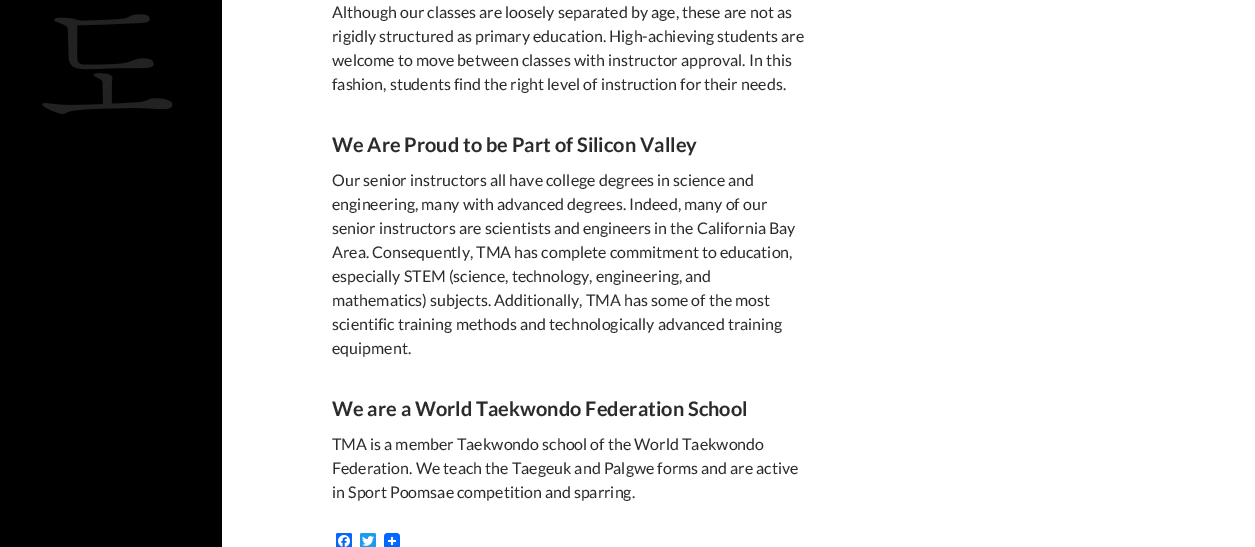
%!PS
<< /PageSize [1255 547] >> setpagedevice
/rgb { 3 { 255 div 3 1 roll } repeat setrgbcolor } def
/font { [ exch dup neg 0 0 3 -1 roll 0 0 ] selectfont } def
/text { moveto show } def
/roundrect { 5 dict begin { /r /h /w /y /x } { exch def } forall
  x r add y moveto x w add y 2 copy h add r arct x w add y h add x 1 index r arct
  x y h add x y r arct x y 2 copy exch w add exch r arct closepath end } def
/picture { 5 dict begin { /h /w /y /x /name } { exch def } forall
  gsave x y translate w h scale
  w h 8 [w 0 0 h 0 0] name (r) file false 3 colorimage grestore end } def
0 547 translate 1 -1 scale
4 setmiterlimit
255 255 255 rgb
0 0 1255 547 rectfill
0 0 0 rgb
0 0 222 547 rectfill
(img_01.rgb) 42 14 131 100 picture
8 102 255 rgb
336 533 16 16 2 roundrect fill
(img_02.rgb) 338 535 12 12 picture
29 155 240 rgb
360 533 16 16 2 roundrect fill
(img_03.rgb) 362 536 12 10 picture
(img_04.rgb) 384 533 16 14 picture
/Lato-Regular 16 font
43 43 43 rgb
(Although our classes are loosely separated by age, these are not as) 332 18 text
(rigidly structured as primary education. High-achieving students are) 332 42 text
(welcome to move between classes with instructor approval. In this) 332 66 text
(fashion, students find the right level of instruction for their needs.) 332 90 text
/Lato-Bold 20 font
(We Are Proud to be Part of Silicon Valley) 332 152 text
/Lato-Regular 16 font
(Our senior instructors all have college degrees in science and) 332 186 text
(engineering, many with advanced degrees. Indeed, many of our) 332 210 text
(senior instructors are scientists and engineers in the California Bay) 332 234 text
(Area. Consequently, TMA has complete commitment to education,) 332 258 text
(especially STEM \(science, technology, engineering, and) 332 282 text
(mathematics\) subjects. Additionally, TMA has some of the most) 332 306 text
(scientific training methods and technologically advanced training) 332 330 text
(equipment.) 332 354 text
/Lato-Bold 20 font
(We are a World Taekwondo Federation School) 332 416 text
/Lato-Regular 16 font
(TMA is a member Taekwondo school of the World Taekwondo) 332 450 text
(Federation. We teach the Taegeuk and Palgwe forms and are active) 332 474 text
(in Sport Poomsae competition and sparring.) 332 498 text
showpage
